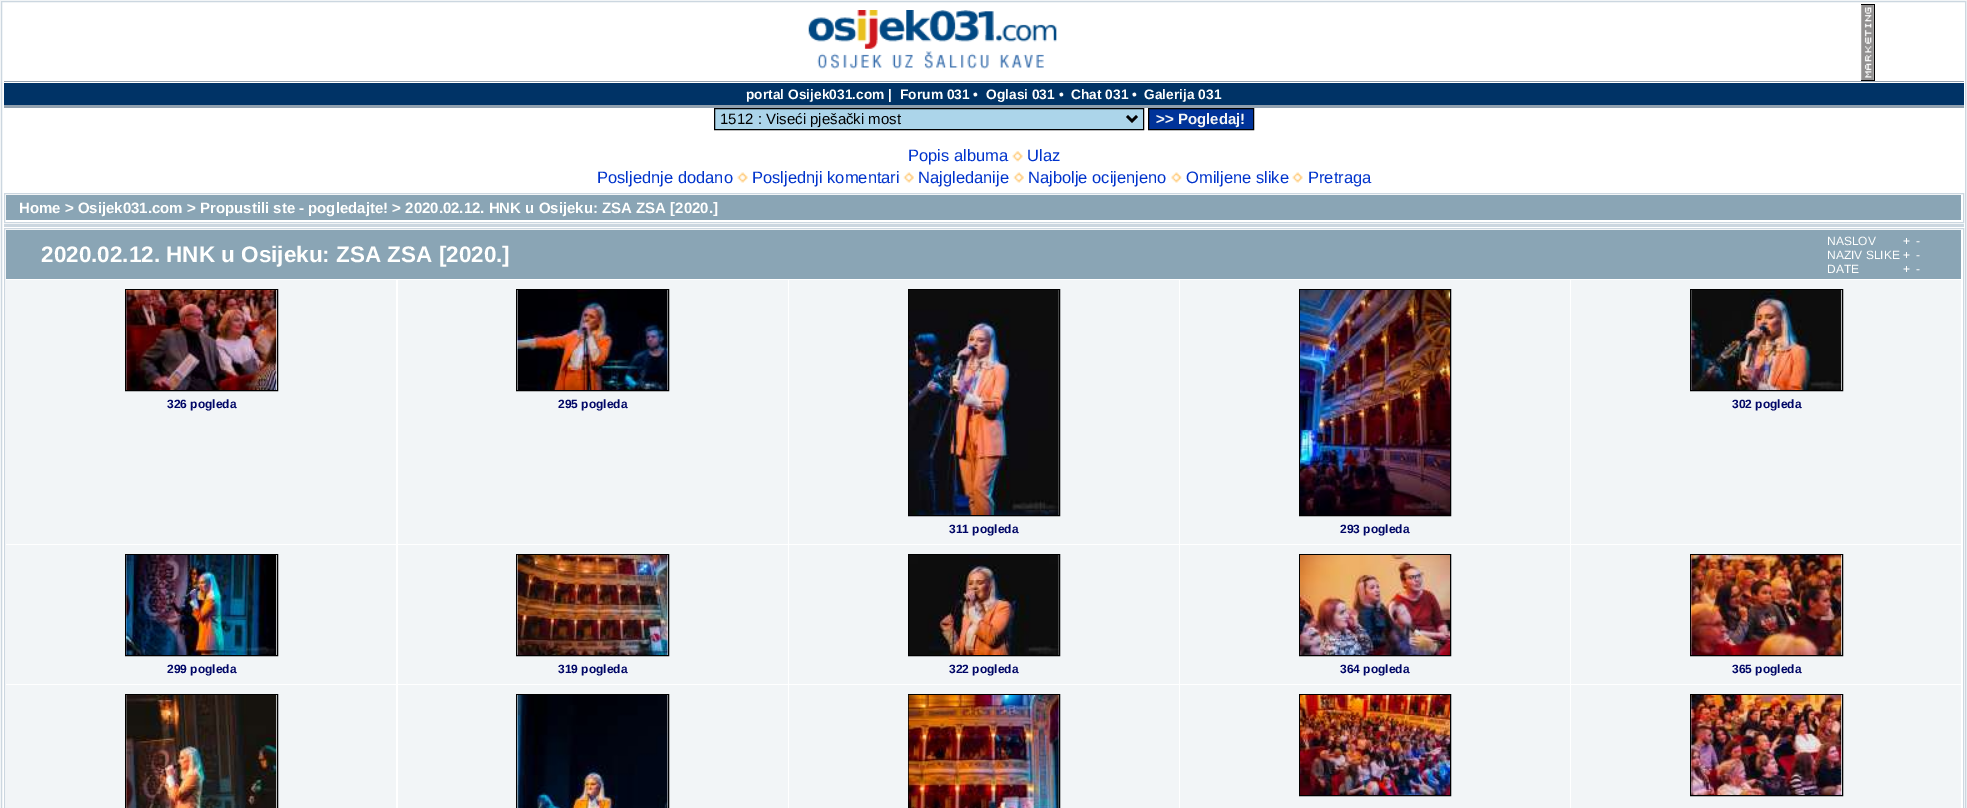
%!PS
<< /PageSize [1967 808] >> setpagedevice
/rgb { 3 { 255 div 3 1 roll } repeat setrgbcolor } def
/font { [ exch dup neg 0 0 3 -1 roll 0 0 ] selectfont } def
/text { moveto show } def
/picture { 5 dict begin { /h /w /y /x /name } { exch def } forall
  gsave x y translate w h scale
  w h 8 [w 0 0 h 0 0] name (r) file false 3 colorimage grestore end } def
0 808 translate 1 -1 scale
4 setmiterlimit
242 245 247 rgb
0 0 1967 808 rectfill
255 255 255 rgb
1.5 1.5 moveto 1964 0 rlineto 0 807 rlineto -1964 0 rlineto closepath gsave fill grestore
204 215 224 rgb
stroke
(img_01.rgb) 808 10 249 59 picture
0 0 0 rgb
1861 4 14 1 rectfill
(img_02.rgb) 1861 5 13 75 picture
1874 4 1 77 rectfill
1861 80 14 1 rectfill
0 51 102 rgb
4 83 1960 22 rectfill
145 160 174 rgb
4 81 1960 1 rectfill
4 105 1960 3 rectfill
172 213 234 rgb
714.5 108.5 moveto 429 0 rlineto 0 21 rlineto -429 0 rlineto closepath gsave fill grestore
0 0 0 rgb
stroke
2.5 setlinewidth
1127 116 moveto 5 5 rlineto 5 -5 rlineto stroke
0 51 153 rgb
1148.5 108.5 moveto 105 0 rlineto 0 21 rlineto -105 0 rlineto closepath gsave fill grestore
0 0 0 rgb
1 setlinewidth
stroke
(img_03.rgb) 1012 151 11 11 picture
(img_04.rgb) 737 172 11 11 picture
(img_05.rgb) 903 172 11 11 picture
(img_06.rgb) 1013 172 11 11 picture
(img_07.rgb) 1171 172 11 11 picture
(img_04.rgb) 1292 172 11 11 picture
204 215 224 rgb
4.5 193.5 1959 29 rectstroke
138 165 181 rgb
6 195 1955 25 rectfill
204 215 224 rgb
4 224 1960 3 rectfill
4.5 228.5 1959 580 rectstroke
138 165 181 rgb
6 230 1955 49 rectfill
242 245 247 rgb
6 280 390 264 rectfill
0 0 0 rgb
125.5 289.5 152 101 rectstroke
(img_08.rgb) 126 290 151 100 picture
242 245 247 rgb
398 280 390 264 rectfill
0 0 0 rgb
516.5 289.5 152 101 rectstroke
(img_09.rgb) 517 290 151 100 picture
242 245 247 rgb
1571 280 390 264 rectfill
0 0 0 rgb
1690.5 289.5 152 101 rectstroke
(img_10.rgb) 1691 290 151 100 picture
242 245 247 rgb
789 280 390 264 rectfill
0 0 0 rgb
908.5 289.5 151 226 rectstroke
(img_11.rgb) 908 290 151 225 picture
242 245 247 rgb
1180 280 390 264 rectfill
0 0 0 rgb
1299.5 289.5 151 226 rectstroke
(img_12.rgb) 1300 290 150 225 picture
242 245 247 rgb
6 545 390 139 rectfill
0 0 0 rgb
125.5 554.5 152 101 rectstroke
(img_13.rgb) 126 555 151 100 picture
242 245 247 rgb
398 545 390 139 rectfill
0 0 0 rgb
516.5 554.5 152 101 rectstroke
(img_14.rgb) 517 555 151 100 picture
242 245 247 rgb
789 545 390 139 rectfill
0 0 0 rgb
908.5 554.5 151 101 rectstroke
(img_15.rgb) 909 555 150 100 picture
242 245 247 rgb
1180 545 390 139 rectfill
0 0 0 rgb
1299.5 554.5 151 101 rectstroke
(img_16.rgb) 1300 555 150 100 picture
242 245 247 rgb
1571 545 390 139 rectfill
0 0 0 rgb
1690.5 554.5 152 101 rectstroke
(img_17.rgb) 1691 555 151 100 picture
242 245 247 rgb
6 685 390 123 rectfill
0 0 0 rgb
125.5 694.5 152 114 rectstroke
(img_18.rgb) 126 695 151 113 picture
242 245 247 rgb
398 685 390 123 rectfill
0 0 0 rgb
516.5 694.5 152 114 rectstroke
(img_19.rgb) 517 695 151 113 picture
242 245 247 rgb
789 685 390 123 rectfill
0 0 0 rgb
908.5 694.5 151 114 rectstroke
(img_20.rgb) 908 695 151 113 picture
242 245 247 rgb
1180 685 390 123 rectfill
0 0 0 rgb
1299.5 694.5 151 101 rectstroke
(img_21.rgb) 1300 695 150 100 picture
242 245 247 rgb
1571 685 390 123 rectfill
0 0 0 rgb
1690.5 694.5 152 101 rectstroke
(img_22.rgb) 1691 695 151 100 picture
/LiberationSans-Bold 13.75 font
255 255 254 rgb
(portal Osijek031.com |) 746 99 text
(Forum 031 •) 900 99 text
(Oglasi 031 •) 986 99 text
(Chat 031 •) 1071 99 text
(Galerija 031) 1144 99 text
/LiberationSans-Regular 15 font
0 0 0 rgb
(1512 : Viseći pješački most) 720 124 text
/LiberationSans-Bold 15 font
246 246 246 rgb
(>> Pogledaj!) 1156 124 text
/LiberationSans-Regular 16.5 font
0 51 204 rgb
(Popis albuma) 908 161 text
(Ulaz) 1027 161 text
(Posljednje dodano) 597 183 text
(Posljednji komentari) 752 183 text
(Najgledanije) 918 183 text
(Najbolje ocijenjeno) 1028 183 text
(Omiljene slike) 1186 183 text
(Pretraga) 1308 183 text
/LiberationSans-Bold 15 font
255 255 254 rgb
(Home > Osijek031.com > Propustili ste - pogledajte! > 2020.02.12. HNK u Osijeku: ZSA ZSA [2020.]) 19 213 text
/LiberationSans-Bold 22.5 font
(2020.02.12. HNK u Osijeku: ZSA ZSA [2020.]) 41 262 text
/LiberationSans-Regular 12 font
(NASLOV) 1827 245 text
(+) 1903 245 text
(-) 1916 245 text
(NAZIV SLIKE +) 1827 259 text
(-) 1916 259 text
(DATE) 1827 273 text
(+) 1903 273 text
(-) 1916 273 text
/LiberationSans-Bold 12 font
0 6 102 rgb
(326 pogleda) 167 408 text
(295 pogleda) 558 408 text
(302 pogleda) 1732 408 text
(311 pogleda) 949 533 text
(293 pogleda) 1340 533 text
(299 pogleda) 167 673 text
(319 pogleda) 558 673 text
(322 pogleda) 949 673 text
(364 pogleda) 1340 673 text
(365 pogleda) 1732 673 text
showpage
